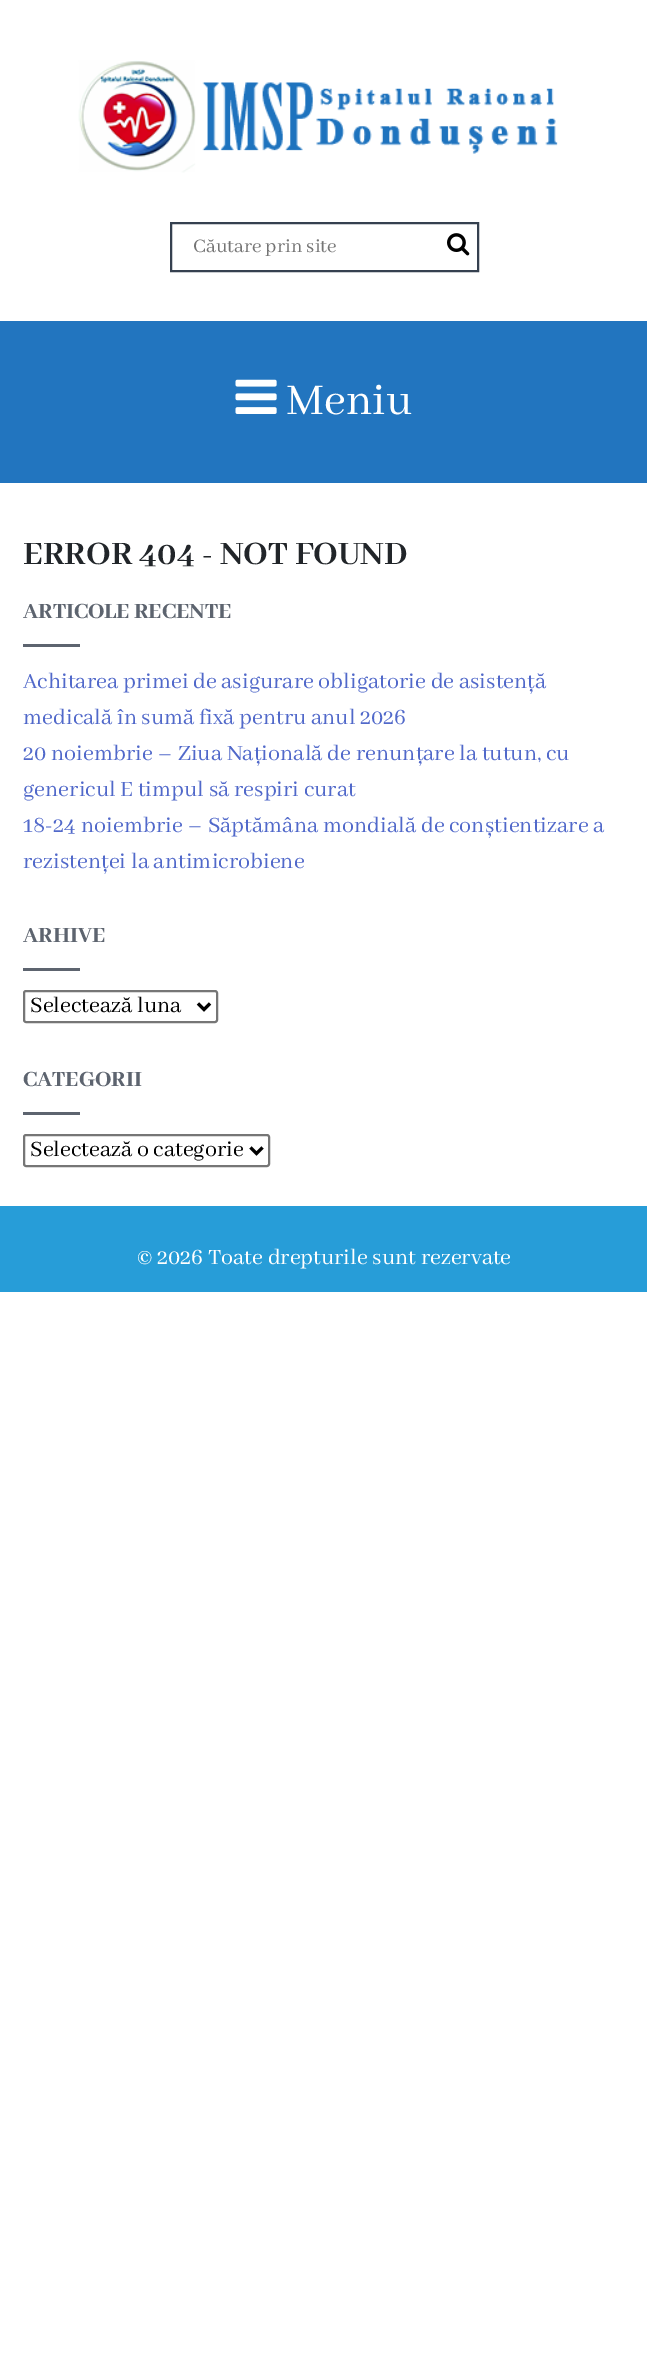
%!PS
<< /PageSize [647 2373] >> setpagedevice
/rgb { 3 { 255 div 3 1 roll } repeat setrgbcolor } def
/font { [ exch dup neg 0 0 3 -1 roll 0 0 ] selectfont } def
/text { moveto show } def
/roundrect { 5 dict begin { /r /h /w /y /x } { exch def } forall
  x r add y moveto x w add y 2 copy h add r arct x w add y h add x 1 index r arct
  x y h add x y r arct x y 2 copy exch w add exch r arct closepath end } def
/picture { 5 dict begin { /h /w /y /x /name } { exch def } forall
  gsave x y translate w h scale
  w h 8 [w 0 0 h 0 0] name (r) file false 3 colorimage grestore end } def
0 2373 translate 1 -1 scale
4 setmiterlimit
255 255 255 rgb
0 0 647 2373 rectfill
(img_01.rgb) 78 60 480 113 picture
53 64 79 rgb
2 setlinewidth
171 223 307 48 rectstroke
(img_02.rgb) 447 233 23 23 picture
34 117 191 rgb
0 321 647 162 rectfill
(img_03.rgb) 235 379 42 35 picture
93 100 111 rgb
23 644 57 3 rectfill
23 968 57 3 rectfill
118 118 118 rgb
24 991 193 31 2 roundrect stroke
0 0 0 rgb
3 setlinewidth
198 1003.5 moveto 6 6 rlineto 6 -6 rlineto stroke
93 100 111 rgb
23 1112 57 3 rectfill
118 118 118 rgb
2 setlinewidth
24 1135 245 31 2 roundrect stroke
0 0 0 rgb
3 setlinewidth
250.5 1147.5 moveto 6 6 rlineto 6 -6 rlineto stroke
39 157 216 rgb
0 1206 647 86 rectfill
/AbhayaLibre-Regular 21 font
117 117 117 rgb
(Căutare prin site) 193 252 text
/AbhayaLibre-Regular 48 font
255 255 255 rgb
(Meniu) 286 414 text
/AbhayaLibre-Bold 36 font
33 37 41 rgb
(ERROR 404 - NOT FOUND) 23 564 text
/AbhayaLibreExtraBold-ExtraBold 24 font
93 100 111 rgb
(ARTICOLE RECENTE) 23 618 text
/AbhayaLibre-Regular 24 font
81 105 202 rgb
(Achitarea primei de asigurare obligatorie de asistență) 23 688 text
(medicală în sumă fixă pentru anul 2026) 23 724 text
(20 noiembrie – Ziua Națională de renunțare la tutun, cu) 23 760 text
(genericul E timpul să respiri curat) 23 796 text
(18-24 noiembrie – Săptămâna mondială de conștientizare a) 23 832 text
(rezistenței la antimicrobiene) 23 868 text
/AbhayaLibreExtraBold-ExtraBold 24 font
93 100 111 rgb
(ARHIVE) 23 942 text
/AbhayaLibre-Regular 24 font
0 0 0 rgb
(Selectează luna) 30 1012 text
/AbhayaLibreExtraBold-ExtraBold 24 font
93 100 111 rgb
(CATEGORII) 23 1086 text
/AbhayaLibre-Regular 24 font
0 0 0 rgb
(Selectează o categorie) 30 1156 text
255 255 255 rgb
(© 2026 Toate drepturile sunt rezervate) 137 1264 text
showpage
